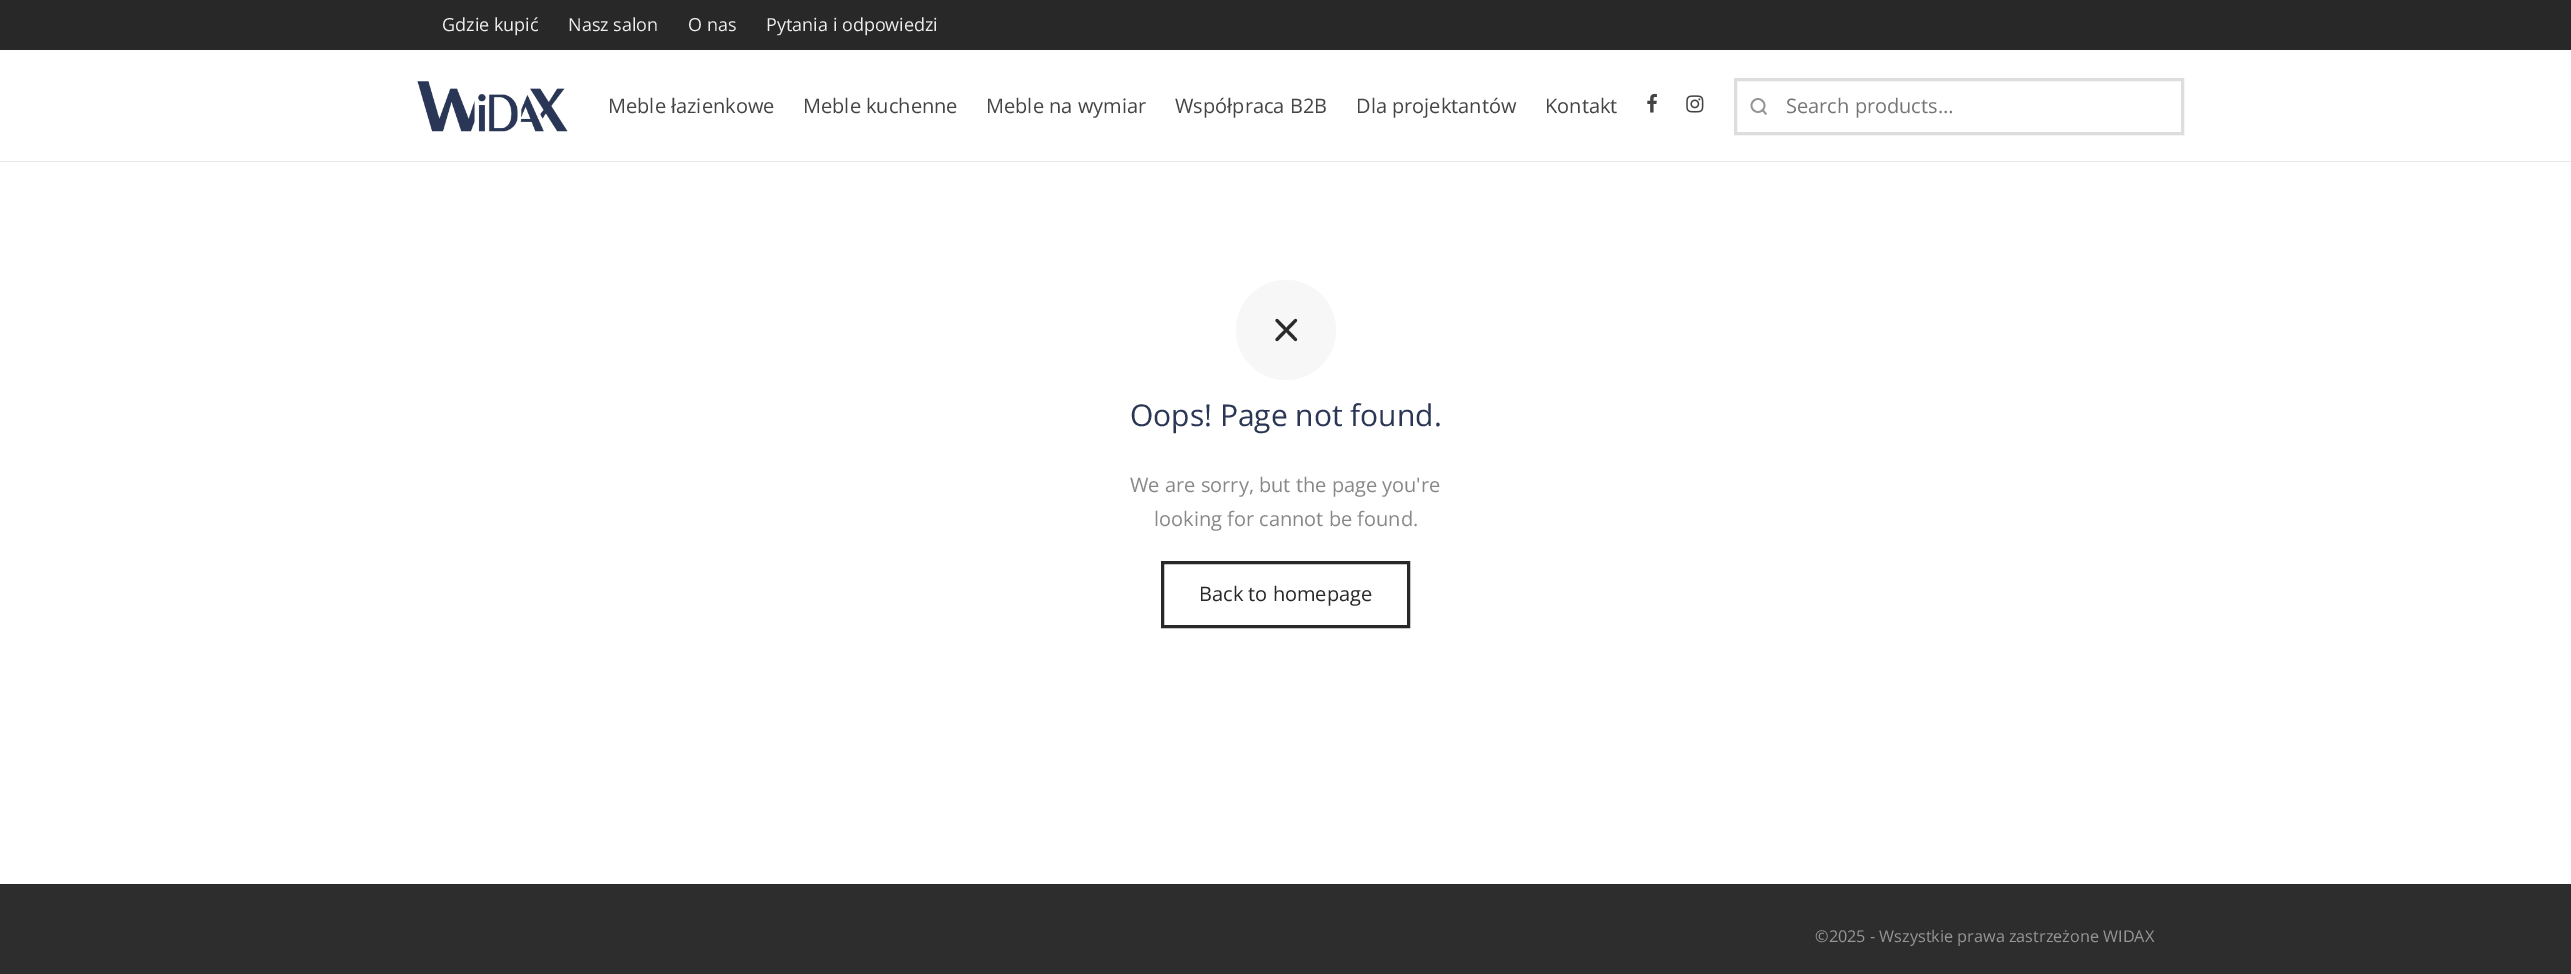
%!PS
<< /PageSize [2571 974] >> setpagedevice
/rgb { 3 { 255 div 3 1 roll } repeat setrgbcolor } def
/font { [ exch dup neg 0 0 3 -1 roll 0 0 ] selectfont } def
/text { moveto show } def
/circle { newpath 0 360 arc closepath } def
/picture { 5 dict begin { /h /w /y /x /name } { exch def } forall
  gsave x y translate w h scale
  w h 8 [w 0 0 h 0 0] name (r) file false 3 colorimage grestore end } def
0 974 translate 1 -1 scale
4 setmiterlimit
255 255 255 rgb
0 0 2571 974 rectfill
40 40 40 rgb
0 0 2571 50 rectfill
(img_01.rgb) 417 81 151 51 picture
(img_02.rgb) 1647 93 10 20 picture
(img_03.rgb) 1686 95 18 18 picture
221 221 221 rgb
3 setlinewidth
1735.5 79.5 447 54 rectstroke
148 148 148 rgb
1.7 setlinewidth
1758 105.5 6.5 circle stroke
1 setlinecap
1 setlinejoin
1766 114 moveto -3.5 -4 rlineto stroke
230 230 230 rgb
0 161 2571 1 rectfill
247 247 247 rgb
1286 330 50 circle fill
43 43 43 rgb
3.1 setlinewidth
1295.5 320.5 moveto -18.5 19 rlineto 1277 320.5 moveto 18.5 19 rlineto stroke
40 40 40 rgb
3 setlinewidth
0 setlinecap
0 setlinejoin
1162.5 562.5 246 64 rectstroke
45 45 45 rgb
0 885 2571 89 rectfill
41 41 41 rgb
0 884 2571 1 rectfill
/OpenSans-Regular 18 font
238 238 238 rgb
(Gdzie kupić) 442 31 text
(Nasz salon) 568 31 text
(O nas) 688 31 text
(Pytania i odpowiedzi) 766 31 text
/OpenSans-Regular 20 font
68 68 68 rgb
(Meble łazienkowe) 608 113 text
(Meble kuchenne) 803 113 text
(Meble na wymiar) 986 113 text
(Współpraca B2B) 1175 113 text
(Dla projektantów) 1356 113 text
(Kontakt) 1545 113 text
117 117 117 rgb
(Search products…) 1786 113 text
/OpenSans-Regular 30 font
42 54 84 rgb
(Oops! Page not found.) 1130 426 text
/OpenSans-Regular 20 font
136 136 136 rgb
(We are sorry, but the page you're) 1130 492 text
(looking for cannot be found.) 1154 526 text
40 40 40 rgb
(Back to homepage) 1199 601 text
/OpenSans-Regular 16.25 font
150 150 150 rgb
(©2025 - Wszystkie prawa zastrzeżone WIDAX) 1815 942 text
showpage
